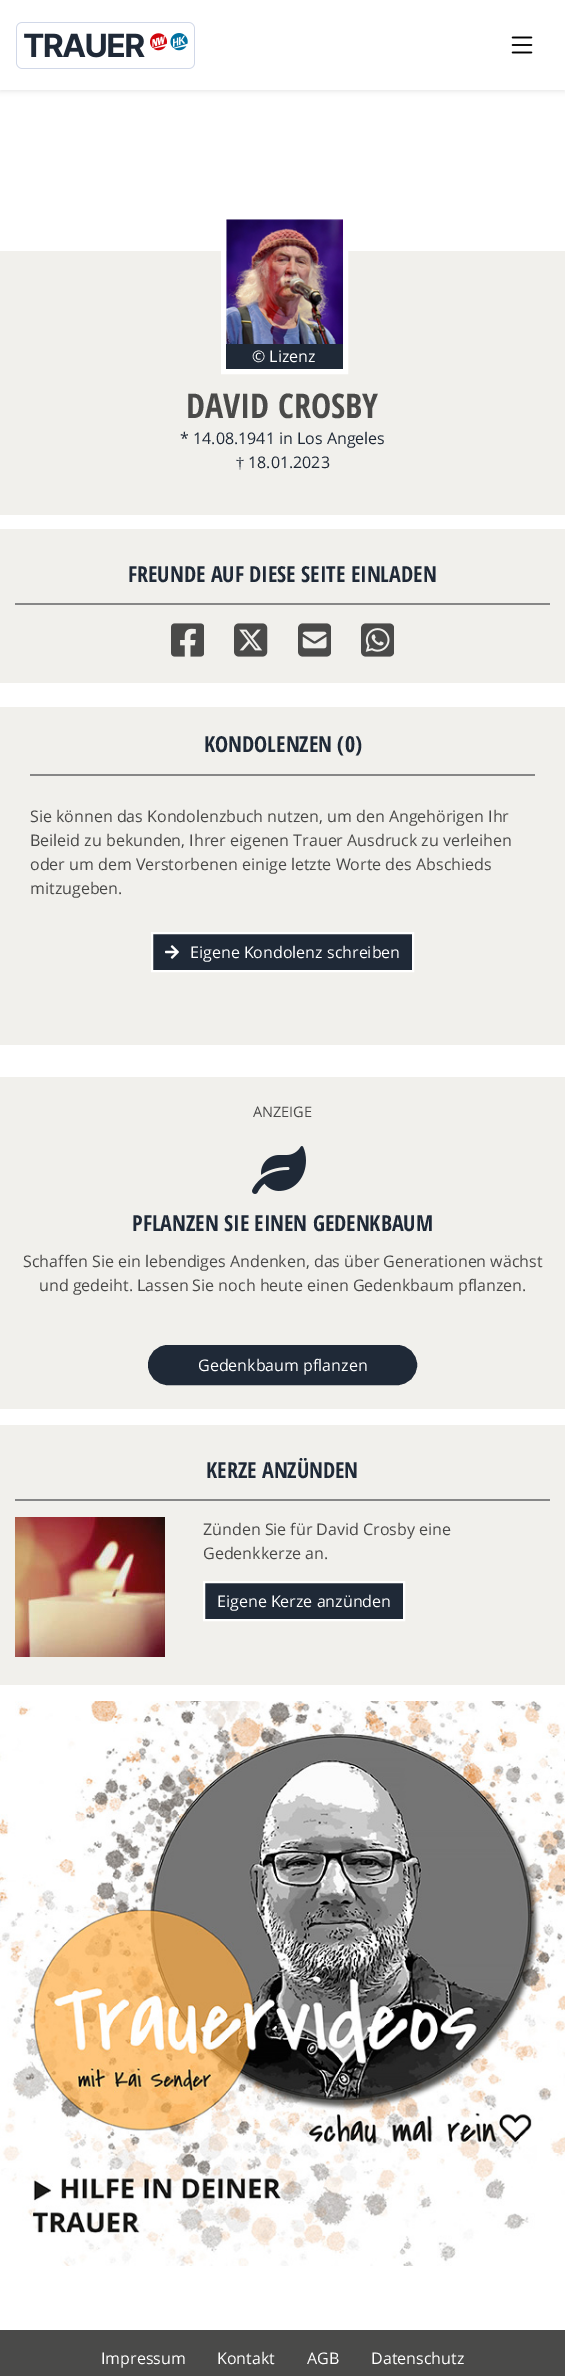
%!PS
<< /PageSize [565 2376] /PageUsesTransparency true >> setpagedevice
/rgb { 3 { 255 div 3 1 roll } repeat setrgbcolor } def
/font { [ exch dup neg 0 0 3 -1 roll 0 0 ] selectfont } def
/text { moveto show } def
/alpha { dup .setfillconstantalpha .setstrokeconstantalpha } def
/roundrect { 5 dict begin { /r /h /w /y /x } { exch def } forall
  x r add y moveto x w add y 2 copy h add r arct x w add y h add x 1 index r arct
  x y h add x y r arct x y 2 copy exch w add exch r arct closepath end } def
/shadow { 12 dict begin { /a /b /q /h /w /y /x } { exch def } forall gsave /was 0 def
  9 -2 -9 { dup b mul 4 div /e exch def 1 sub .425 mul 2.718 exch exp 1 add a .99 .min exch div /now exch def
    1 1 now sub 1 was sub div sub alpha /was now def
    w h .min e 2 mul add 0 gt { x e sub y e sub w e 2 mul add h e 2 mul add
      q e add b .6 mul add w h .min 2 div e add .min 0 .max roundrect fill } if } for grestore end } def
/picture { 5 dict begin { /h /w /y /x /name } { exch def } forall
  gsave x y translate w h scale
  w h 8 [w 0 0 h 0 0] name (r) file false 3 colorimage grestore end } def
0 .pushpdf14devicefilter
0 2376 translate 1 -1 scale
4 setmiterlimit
255 255 255 rgb
0 0 565 2376 rectfill
0 0 0 rgb
0 2 565 90 0 2 0.07 shadow
255 255 255 rgb
0 0 565 90 rectfill
(img_01.rgb) 16 22 179 47 picture
(img_02.rgb) 511 36 22 18 picture
241 240 236 rgb
0 251 565 264 rectfill
255 255 255 rgb
5 setlinewidth
223.5 216.5 122 155 rectstroke
(img_03.rgb) 226 219 117 125 picture
31 41 55 rgb
226 344 117 25 rectfill
241 240 236 rgb
0 529 565 154 rectfill
135 135 135 rgb
15 603 535 2 rectfill
(img_04.rgb) 171 623 33 34 picture
(img_05.rgb) 234 623 34 34 picture
(img_06.rgb) 298 623 33 34 picture
(img_07.rgb) 361 623 33 34 picture
241 240 236 rgb
0 707 565 338 rectfill
135 135 135 rgb
30 774 505 2 rectfill
31 41 55 rgb
152 933 moveto 261 0 rlineto 0 38 rlineto -261 0 rlineto closepath gsave fill grestore
255 255 255 rgb
2 setlinewidth
stroke
(img_08.rgb) 165 945 14 14 picture
241 240 236 rgb
0 1077 565 332 rectfill
(img_09.rgb) 252 1146 54 48 picture
31 41 55 rgb
149 1346 267 38 19 roundrect gsave fill grestore
stroke
241 240 236 rgb
0 1425 565 260 rectfill
135 135 135 rgb
15 1499 535 2 rectfill
(img_10.rgb) 15 1517 150 140 picture
31 41 55 rgb
204 1582 moveto 200 0 rlineto 0 38 rlineto -200 0 rlineto closepath gsave fill grestore
255 255 255 rgb
stroke
(img_11.rgb) 0 1701 565 565 picture
74 74 73 rgb
0 2330 565 46 rectfill
/OpenSans-Regular 16 font
255 255 255 rgb
(© Lizenz) 252 362 text
/OpenSansCondensed-Bold 34 font
74 74 73 rgb
(DAVID CROSBY) 186 418 text
/OpenSans-Regular 16 font
31 41 55 rgb
(* 14.08.1941 in Los Angeles) 180 444 text
/LiberationSerif-Regular 16 font
(†) 236 468 text
/OpenSans-Regular 16 font
(18.01.2023) 248 468 text
/OpenSansCondensed-Bold 22 font
(FREUNDE AUF DIESE SEITE EINLADEN) 128 582 text
(KONDOLENZEN \(0\)) 204 752 text
/OpenSans-Regular 16 font
74 74 73 rgb
(Sie können das Kondolenzbuch nutzen, um den Angehörigen Ihr) 30 822 text
(Beileid zu bekunden, Ihrer eigenen Trauer Ausdruck zu verleihen) 30 846 text
(oder um dem Verstorbenen einige letzte Worte des Abschieds) 30 870 text
(mitzugeben.) 30 894 text
255 255 255 rgb
(Eigene Kondolenz schreiben) 190 958 text
/OpenSans-Regular 14.5 font
74 74 73 rgb
(ANZEIGE) 253 1117 text
/OpenSansCondensed-Bold 22 font
31 41 55 rgb
(PFLANZEN SIE EINEN GEDENKBAUM) 132 1231 text
/OpenSans-Regular 16 font
74 74 73 rgb
(Schaffen Sie ein lebendiges Andenken, das über Generationen wächst) 23 1267 text
(und gedeiht. Lassen Sie noch heute einen Gedenkbaum pflanzen.) 39 1291 text
255 255 255 rgb
(Gedenkbaum pflanzen) 198 1371 text
/OpenSansCondensed-Bold 22 font
31 41 55 rgb
(KERZE ANZÜNDEN) 206 1478 text
/OpenSans-Regular 16 font
74 74 73 rgb
(Zünden Sie für David Crosby eine) 203 1535 text
(Gedenkkerze an.) 203 1559 text
255 255 255 rgb
(Eigene Kerze anzünden) 217 1607 text
(Impressum) 101 2364 text
(Kontakt) 217 2364 text
(AGB) 307 2364 text
(Datenschutz) 371 2364 text
.poppdf14devicefilter showpage
